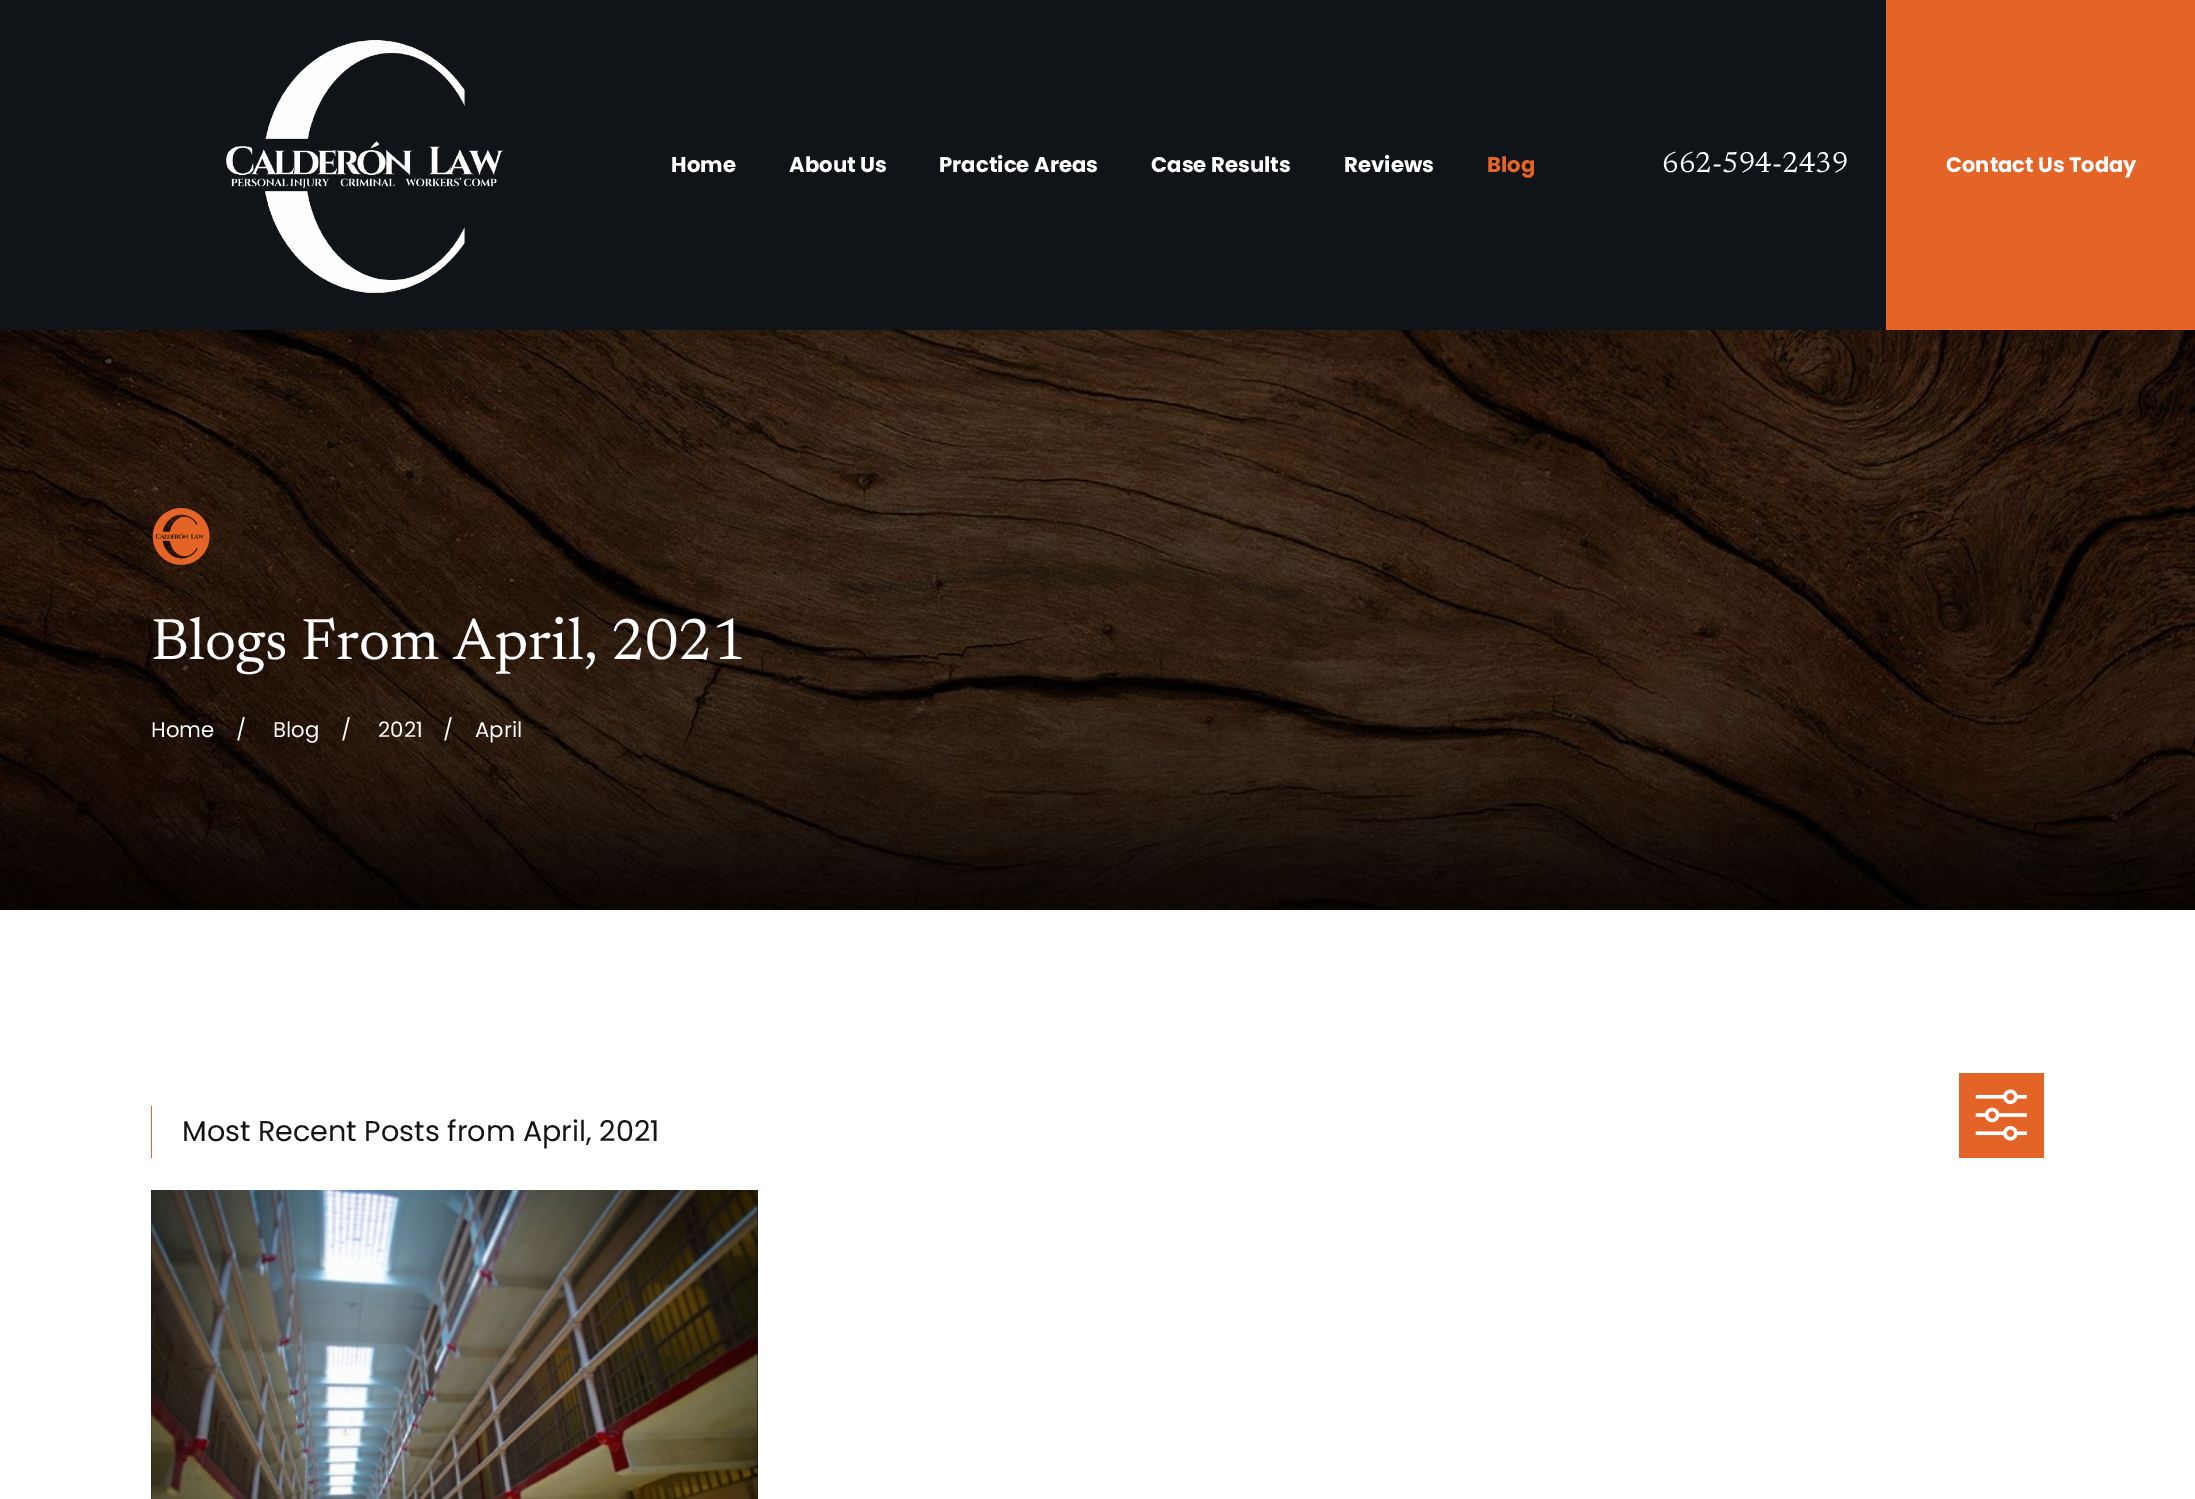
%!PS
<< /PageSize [2195 1499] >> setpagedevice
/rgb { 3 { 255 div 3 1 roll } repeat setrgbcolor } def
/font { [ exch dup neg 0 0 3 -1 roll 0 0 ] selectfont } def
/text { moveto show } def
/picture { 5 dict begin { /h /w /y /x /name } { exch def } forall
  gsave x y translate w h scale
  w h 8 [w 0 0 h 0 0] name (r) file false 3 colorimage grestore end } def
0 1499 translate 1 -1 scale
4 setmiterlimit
255 255 255 rgb
0 0 2195 1499 rectfill
16 19 23 rgb
0 0 1886 330 rectfill
(img_01.rgb) 226 40 278 253 picture
227 100 38 rgb
1886 0 309 330 rectfill
(img_02.rgb) 0 330 2195 580 picture
(img_03.rgb) 152 508 58 57 picture
151 1106 1 52 rectfill
1959 1073 85 85 rectfill
(img_04.rgb) 1975 1089 52 52 picture
16 19 23 rgb
151 1190 607 309 rectfill
(img_05.rgb) 151 1190 607 309 picture
/Poppins-Bold 21.25 font
255 255 255 rgb
(Home) 671 172 text
(About Us) 789 172 text
(Practice Areas) 939 172 text
(Case Results) 1151 172 text
(Reviews) 1344 172 text
227 100 38 rgb
(Blog) 1487 172 text
/Newsreader-Regular 29.25 font
255 255 255 rgb
(662-594-2439) 1662 172 text
/Poppins-Bold 21 font
(Contact Us Today) 1946 172 text
/Newsreader-Regular 59 font
(Blogs From April, 2021) 151 659 text
/Poppins-Regular 21.25 font
(Home) 151 737 text
(/) 236 737 text
(Blog) 273 737 text
(/) 341 737 text
(2021) 378 737 text
(/) 443 737 text
(April) 475 737 text
/Poppins-Regular 28.6 font
19 20 21 rgb
(Most Recent Posts from April, 2021) 182 1141 text
showpage
